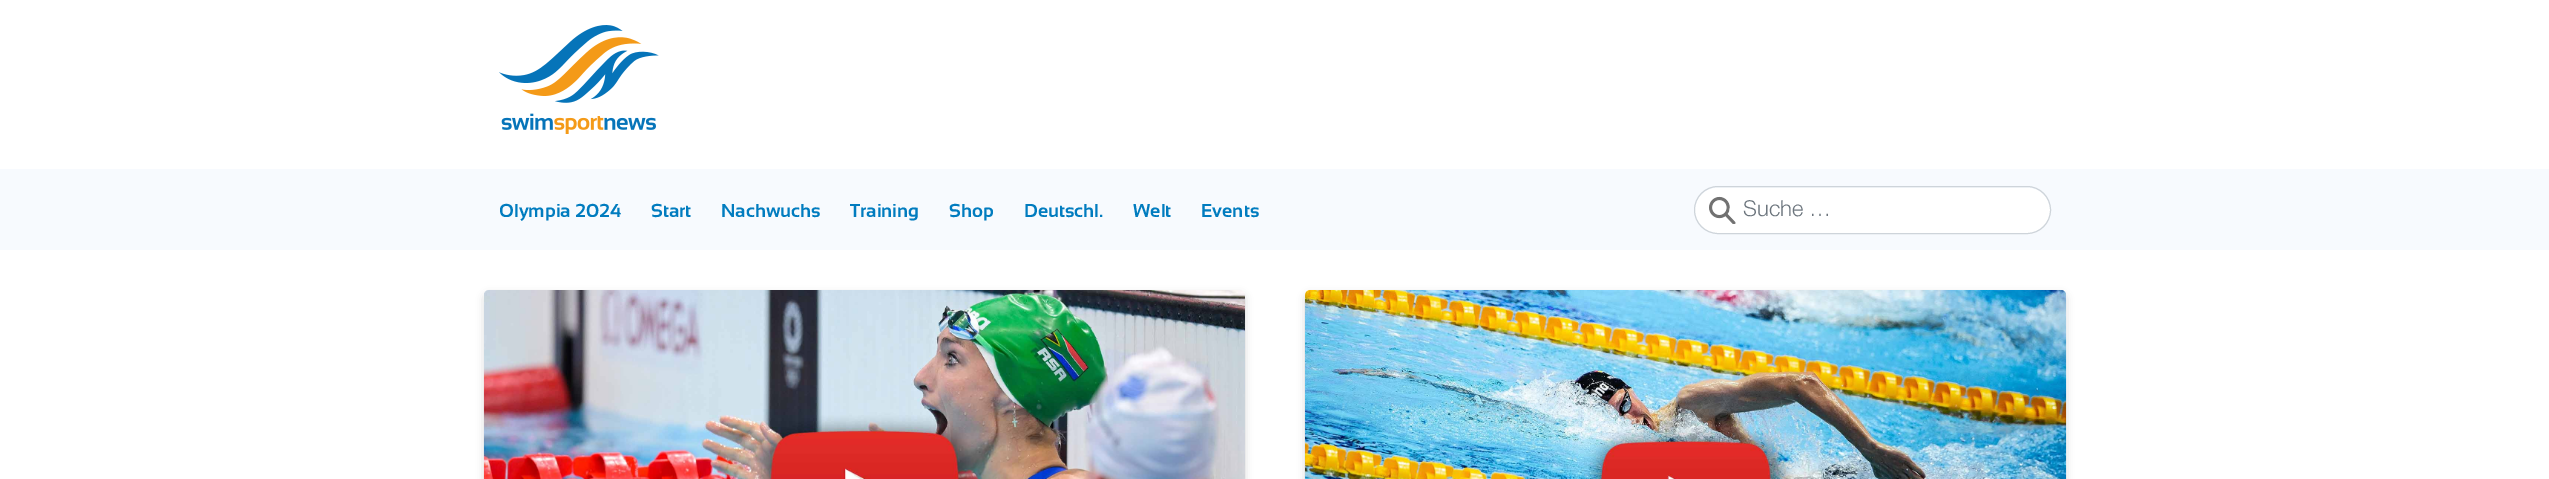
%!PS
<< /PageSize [2549 479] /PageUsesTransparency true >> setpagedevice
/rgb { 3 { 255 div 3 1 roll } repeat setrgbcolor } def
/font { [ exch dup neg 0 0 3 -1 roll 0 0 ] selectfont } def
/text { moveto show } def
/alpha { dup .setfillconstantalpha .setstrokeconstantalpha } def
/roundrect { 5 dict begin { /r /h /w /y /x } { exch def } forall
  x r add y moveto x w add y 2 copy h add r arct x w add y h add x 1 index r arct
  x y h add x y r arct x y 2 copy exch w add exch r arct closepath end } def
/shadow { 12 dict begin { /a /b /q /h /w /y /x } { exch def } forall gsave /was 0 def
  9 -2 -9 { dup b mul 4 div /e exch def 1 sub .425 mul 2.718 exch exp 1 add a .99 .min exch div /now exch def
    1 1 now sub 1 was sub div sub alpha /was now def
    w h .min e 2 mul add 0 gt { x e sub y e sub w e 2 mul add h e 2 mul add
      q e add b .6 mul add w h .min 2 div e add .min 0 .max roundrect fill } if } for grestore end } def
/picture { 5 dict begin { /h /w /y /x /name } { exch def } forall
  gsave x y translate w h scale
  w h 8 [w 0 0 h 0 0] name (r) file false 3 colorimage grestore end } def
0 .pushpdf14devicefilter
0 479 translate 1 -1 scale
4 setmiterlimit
255 255 255 rgb
0 0 2549 479 rectfill
(img_01.rgb) 499 25 160 109 picture
247 250 254 rgb
0 169 2549 81 rectfill
255 255 255 rgb
1695 188 355 45 22.5 roundrect fill
206 212 218 rgb
1694.5 186.5 356 47 23.5 roundrect stroke
(img_02.rgb) 1709 196 27 28 picture
0 0 0 rgb
484 294 761 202 5 4 0.16 shadow
(img_03.rgb) 483 290 762 189 picture
1305 294 761 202 5 4 0.16 shadow
(img_04.rgb) 1305 290 762 189 picture
/Sansation-Bold 18.75 font
1 124 191 rgb
(Olympia 2024) 499 217 text
(Start) 651 217 text
(Nachwuchs) 721 217 text
(Training) 850 217 text
(Shop) 949 217 text
(Deutschl.) 1024 217 text
(Welt) 1133 217 text
(Events) 1201 217 text
/HelveticaNeue-Light 22 font
108 117 125 rgb
(Suche …) 1743 216 text
.poppdf14devicefilter showpage
